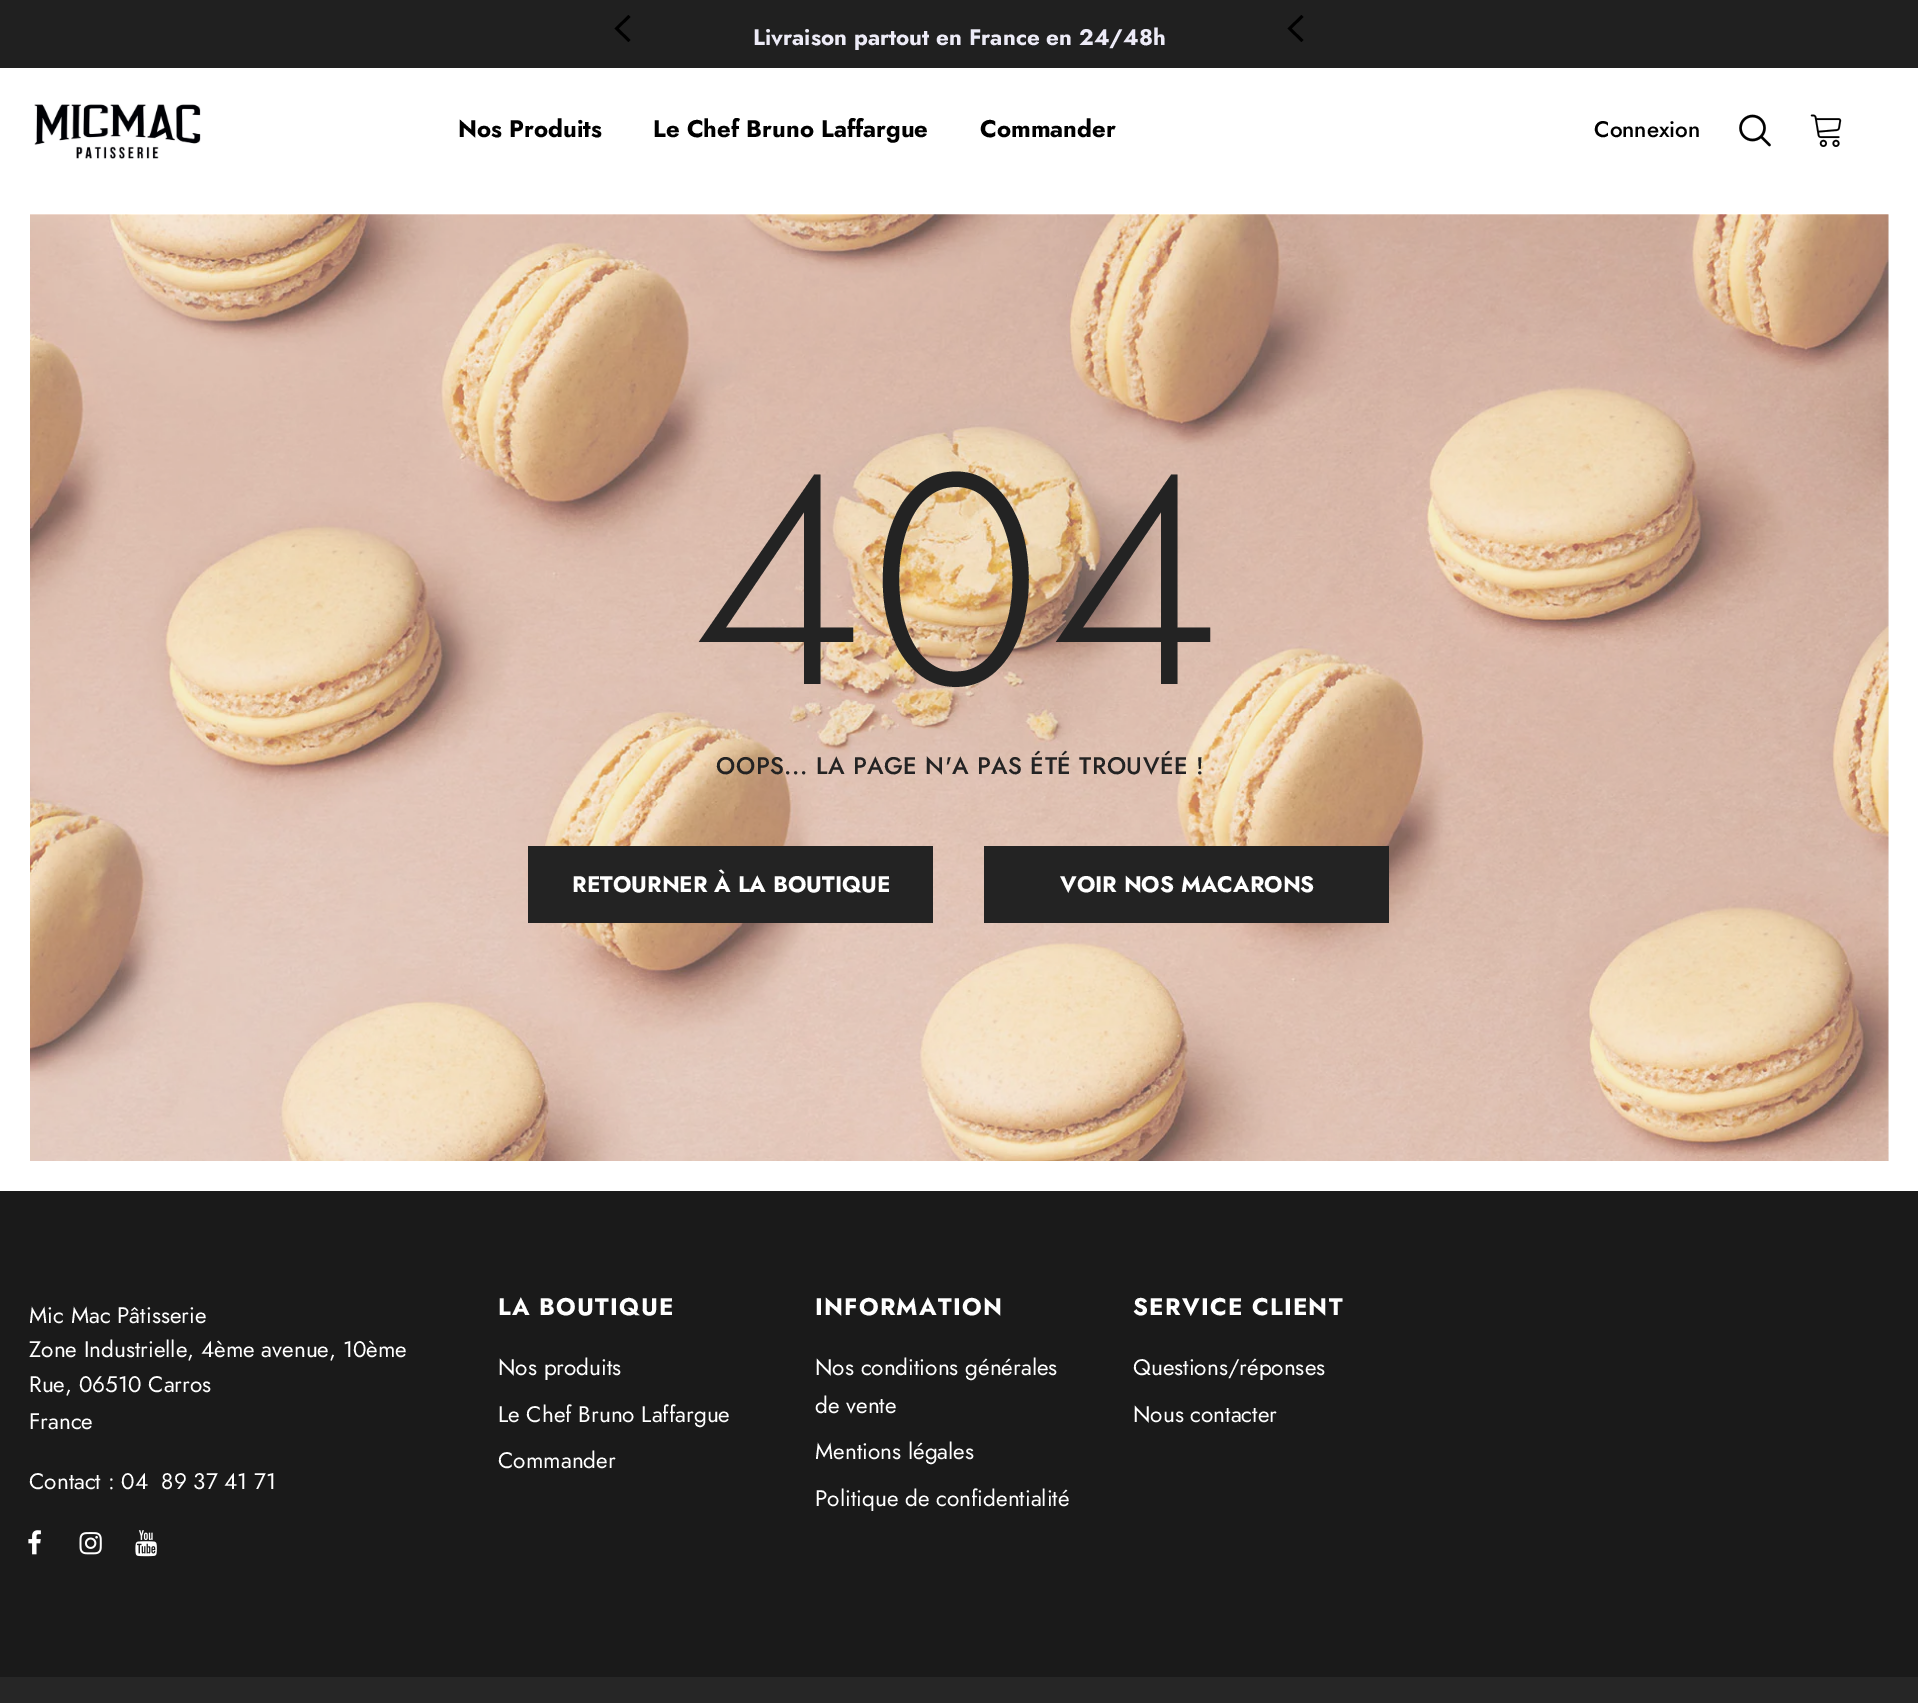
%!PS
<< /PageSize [1918 1703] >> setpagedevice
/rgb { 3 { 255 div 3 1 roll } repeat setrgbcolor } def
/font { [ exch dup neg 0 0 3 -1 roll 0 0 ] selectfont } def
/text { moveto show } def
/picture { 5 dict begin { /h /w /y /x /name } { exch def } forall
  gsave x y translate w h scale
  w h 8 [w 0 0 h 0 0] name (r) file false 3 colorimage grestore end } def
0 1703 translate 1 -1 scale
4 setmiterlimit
255 255 255 rgb
0 0 1918 1703 rectfill
246 246 246 rgb
1888 215 1 946 rectfill
32 32 32 rgb
0 0 1918 68 rectfill
0 0 0 rgb
630.5 17 moveto -2 -2 rlineto -14 13.5 rlineto 14 13.5 rlineto 2 -2 rlineto -12 -11.5 rlineto closepath fill
1301.5 42 moveto 2 -2 rlineto -12 -11.5 rlineto 12 -11.5 rlineto -2 -2 rlineto -14 13.5 rlineto closepath fill
(img_01.rgb) 34 104 167 55 picture
(img_02.rgb) 1739 114 32 33 picture
(img_03.rgb) 1810 114 32 33 picture
(img_04.rgb) 30 214 1859 947 picture
35 35 35 rgb
528 846 405 77 rectfill
984 846 405 77 rectfill
26 26 26 rgb
0 1191 1918 486 rectfill
(img_05.rgb) 28 1530 13 25 picture
(img_06.rgb) 79 1532 23 23 picture
(img_07.rgb) 135 1530 22 27 picture
38 38 38 rgb
0 1677 1918 26 rectfill
/Jost-Bold 22.5 font
237 235 247 rgb
(Livraison partout en France en 24/48h) 753 45 text
/Jost-Bold 24 font
0 0 0 rgb
(Nos Produits) 458 137 text
(Le Chef Bruno Laffargue) 653 137 text
(Commander) 980 137 text
/Jost-Medium 22.5 font
(Connexion) 1594 137 text
/Jost-Light 300 font
35 35 35 rgb
692 684 moveto 6 0 (404) ashow
/Jost-Medium 24 font
716 774 moveto 0.5 0 (OOPS... LA PAGE N'A PAS ÉTÉ TROUVÉE !) ashow
/Jost-Bold 22.5 font
255 255 255 rgb
(RETOURNER À LA BOUTIQUE) 572 892 text
(VOIR NOS MACARONS) 1060 892 text
/Jost-Regular 22.5 font
(Mic Mac Pâtisserie) 29 1323 text
(Zone Industrielle, 4ème avenue, 10ème) 29 1357 text
(Rue, 06510 Carros) 29 1392 text
(France) 29 1429 text
(Contact : 04  89 37 41 71) 29 1489 text
/Jost-Bold 24 font
498 1315 moveto 1.25 0 (LA BOUTIQUE) ashow
/Jost-Regular 22.5 font
(Nos produits) 498 1375 text
(Le Chef Bruno Laffargue) 498 1422 text
(Commander) 498 1468 text
/Jost-Bold 24 font
815 1315 moveto 1.25 0 (INFORMATION) ashow
/Jost-Regular 22.5 font
(Nos conditions générales) 815 1375 text
(de vente) 815 1413 text
(Mentions légales) 815 1459 text
(Politique de confidentialité) 815 1506 text
/Jost-Bold 24 font
1133 1315 moveto 1.25 0 (SERVICE CLIENT) ashow
/Jost-Regular 22.5 font
(Questions/réponses) 1133 1375 text
(Nous contacter) 1133 1422 text
showpage
